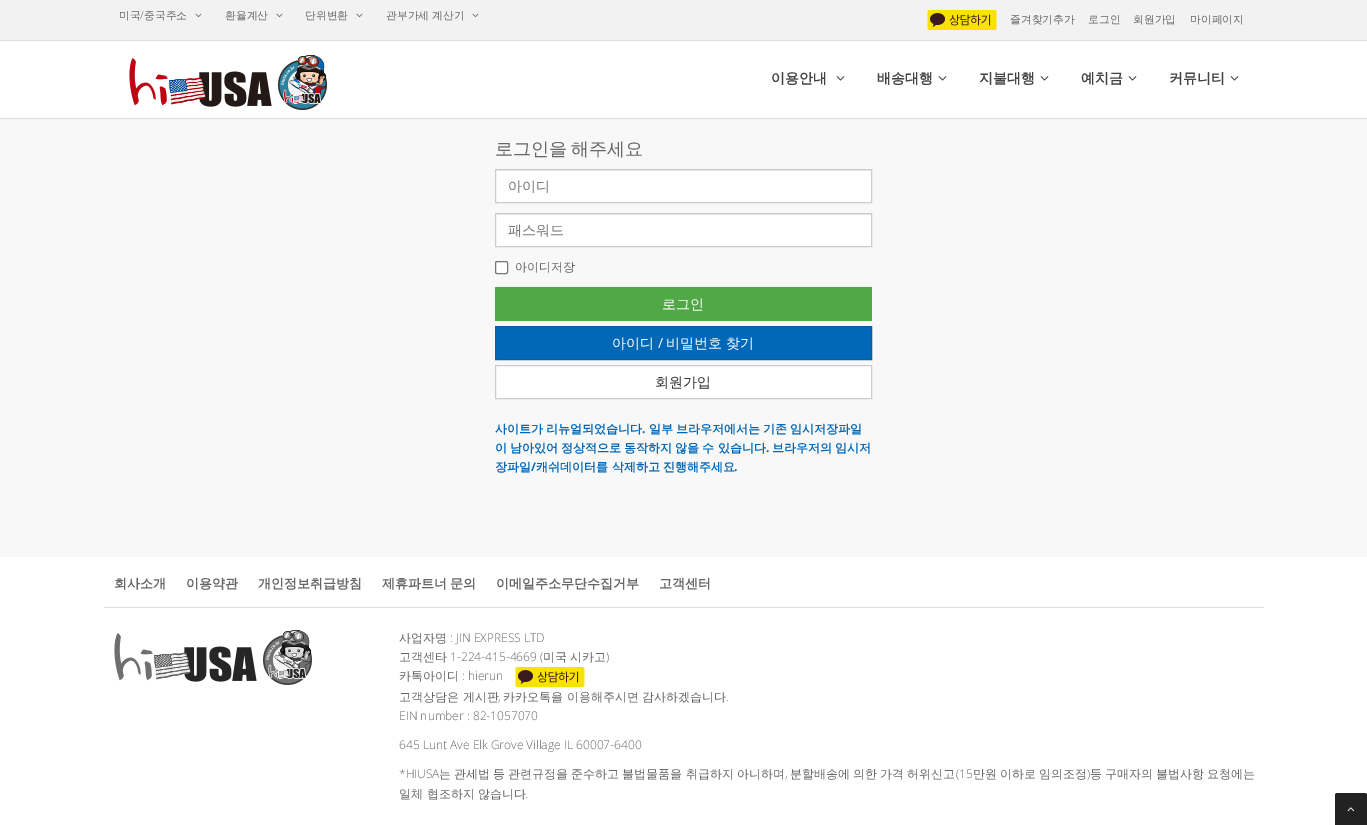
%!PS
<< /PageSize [1367 825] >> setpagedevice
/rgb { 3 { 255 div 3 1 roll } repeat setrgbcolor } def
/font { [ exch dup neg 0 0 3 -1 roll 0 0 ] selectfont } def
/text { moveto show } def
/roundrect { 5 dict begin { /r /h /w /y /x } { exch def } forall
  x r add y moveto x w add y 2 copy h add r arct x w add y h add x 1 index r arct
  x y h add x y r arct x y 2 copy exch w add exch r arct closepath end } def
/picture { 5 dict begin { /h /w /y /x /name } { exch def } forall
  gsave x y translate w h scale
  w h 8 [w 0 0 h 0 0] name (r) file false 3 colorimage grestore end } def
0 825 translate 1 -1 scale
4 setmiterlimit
248 248 248 rgb
0 0 1367 825 rectfill
255 255 255 rgb
0 41 1367 77 rectfill
221 221 221 rgb
0 118 1367 1 rectfill
242 242 242 rgb
0 0 1367 40 rectfill
221 221 221 rgb
0 40 1367 1 rectfill
(img_01.rgb) 195 13 7 5 picture
(img_01.rgb) 276 13 7 5 picture
(img_01.rgb) 356 13 7 5 picture
(img_01.rgb) 472 13 7 5 picture
(img_02.rgb) 927 10 70 20 picture
(img_03.rgb) 129 55 198 55 picture
(img_04.rgb) 836 76 9 5 picture
(img_04.rgb) 938 76 9 5 picture
(img_04.rgb) 1040 76 9 5 picture
(img_04.rgb) 1128 76 9 5 picture
(img_04.rgb) 1230 76 9 5 picture
255 255 255 rgb
496 171 375 31 rectfill
236 236 236 rgb
496 170 375 1 rectfill
204 204 204 rgb
495.5 169.5 376 33 rectstroke
255 255 255 rgb
496 215 375 31 rectfill
236 236 236 rgb
496 214 375 1 rectfill
204 204 204 rgb
495.5 213.5 376 33 rectstroke
255 255 255 rgb
495.5 261.5 12 12 1.5 roundrect gsave fill grestore
118 118 118 rgb
stroke
80 168 70 rgb
495 287 377 34 rectfill
0 104 183 rgb
495.5 326.5 moveto 376 0 rlineto 0 33 rlineto -376 0 rlineto closepath gsave fill grestore
1 95 166 rgb
stroke
255 255 255 rgb
495.5 365.5 moveto 376 0 rlineto 0 33 rlineto -376 0 rlineto closepath gsave fill grestore
204 204 204 rgb
stroke
255 255 255 rgb
0 557 1367 268 rectfill
221 221 221 rgb
104 607 1160 1 rectfill
(img_05.rgb) 114 630 198 55 picture
(img_06.rgb) 515 667 70 20 picture
34 34 34 rgb
1337 793 moveto 28 0 rlineto 1 0 2 1 2 2 rcurveto 0 30 rlineto -32 0 rlineto 0 -30 rlineto 0 -1 1 -2 2 -2 rcurveto closepath fill
(img_07.rgb) 1347 807 8 5 picture
/WenQuanYiZenHei-Medium 10.75 font
102 102 102 rgb
(미국) 119 19 text
/OpenSans-Light 10.75 font
(/) 140 19 text
/WenQuanYiZenHei-Medium 10.75 font
(중국주소) 144 19 text
(환율계산) 225 19 text
(단위변환) 305 19 text
(관부가세 계산기) 386 19 text
(즐겨찾기추가) 1010 23 text
(로그인) 1088 23 text
(회원가입) 1133 23 text
(마이페이지) 1190 23 text
/WenQuanYiZenHei-Bold 14 font
68 68 68 rgb
(이용안내) 771 83 text
(배송대행) 877 83 text
(지불대행) 979 83 text
(예치금) 1081 83 text
(커뮤니티) 1169 83 text
/WenQuanYiZenHei-Medium 18 font
102 102 102 rgb
495 155 moveto -1 0 32 (로그인을 해주세요) widthshow
/WenQuanYiZenHei-Medium 14 font
119 119 119 rgb
(아이디) 508 191 text
(패스워드) 508 235 text
/WenQuanYiZenHei-Medium 12 font
102 102 102 rgb
(아이디저장) 515 271 text
/WenQuanYiZenHei-Medium 14 font
255 255 255 rgb
(로그인) 662 309 text
(아이디) 612 348 text
/OpenSans-Regular 14 font
(/) 658 348 text
/WenQuanYiZenHei-Medium 14 font
(비밀번호 찾기) 666 348 text
51 51 51 rgb
(회원가입) 655 387 text
/WenQuanYiZenHei-Bold 12 font
0 104 183 rgb
495 433 moveto -0.5 0 32 (사이트가 리뉴얼되었습니다) widthshow
/OpenSans-Bold 12 font
(.) 642 433 text
/WenQuanYiZenHei-Bold 12 font
649 433 moveto -0.5 0 32 (일부 브라우저에서는 기존 임시저장파일) widthshow
495 452 moveto -0.5 0 32 (이 남아있어 정상적으로 동작하지 않을 수 있습니다) widthshow
/OpenSans-Bold 12 font
(.) 766 452 text
/WenQuanYiZenHei-Bold 12 font
772 452 moveto -0.5 0 32 (브라우저의 임시저) widthshow
(장파일) 495 471 text
/OpenSans-Bold 12 font
(/) 531 471 text
/WenQuanYiZenHei-Bold 12 font
(캐쉬데이터를 삭제하고 진행해주세요) 536 471 text
/OpenSans-Bold 12 font
(.) 734 471 text
/WenQuanYiZenHei-Bold 13 font
102 102 102 rgb
(회사소개) 114 588 text
(이용약관) 186 588 text
(개인정보취급방침) 258 588 text
382 588 moveto -1 0 32 (제휴파트너 문의) widthshow
(이메일주소무단수집거부) 496 588 text
(고객센터) 659 588 text
/WenQuanYiZenHei-Medium 12 font
(사업자명) 399 642 text
/OpenSans-Light 12 font
(: JIN EXPRESS LTD) 450 642 text
/WenQuanYiZenHei-Medium 12 font
(고객센타) 399 661 text
/OpenSans-Light 12 font
(1-224-415-4669 \() 450 661 text
/WenQuanYiZenHei-Medium 12 font
(미국) 543 661 text
(시카고) 570 661 text
/OpenSans-Light 12 font
(\)) 606 661 text
/WenQuanYiZenHei-Medium 12 font
(카톡아이디) 399 680 text
/OpenSans-Light 12 font
(: hierun) 462 680 text
/WenQuanYiZenHei-Medium 12 font
(고객상담은 게시판) 399 701 text
/OpenSans-Light 12 font
(,) 498 701 text
/WenQuanYiZenHei-Medium 12 font
(카카오톡을 이용해주시면 감사하겠습니다) 503 701 text
/OpenSans-Light 12 font
(.) 726 701 text
(EIN number : 82-1057070) 399 720 text
(645 Lunt Ave Elk Grove Village IL 60007-6400) 399 749 text
(*HIUSA) 399 778 text
/WenQuanYiZenHei-Medium 12 font
439 778 moveto -0.5 0 32 (는 관세법 등 관련규정을 준수하고 불법물품을 취급하지 아니하며) widthshow
/OpenSans-Light 12 font
(,) 785 778 text
/WenQuanYiZenHei-Medium 12 font
790 778 moveto -0.5 0 32 (분할배송에 의한 가격 허위신고) widthshow
/OpenSans-Light 12 font
(\(15) 956 778 text
/WenQuanYiZenHei-Medium 12 font
973 778 moveto -0.5 0 32 (만원 이하로 임의조정) widthshow
/OpenSans-Light 12 font
(\)) 1087 778 text
/WenQuanYiZenHei-Medium 12 font
1090 778 moveto -0.5 0 32 (등 구매자의 불법사항 요청에는) widthshow
(일체 협조하지 않습니다) 399 798 text
/OpenSans-Light 12 font
(.) 525 798 text
showpage
